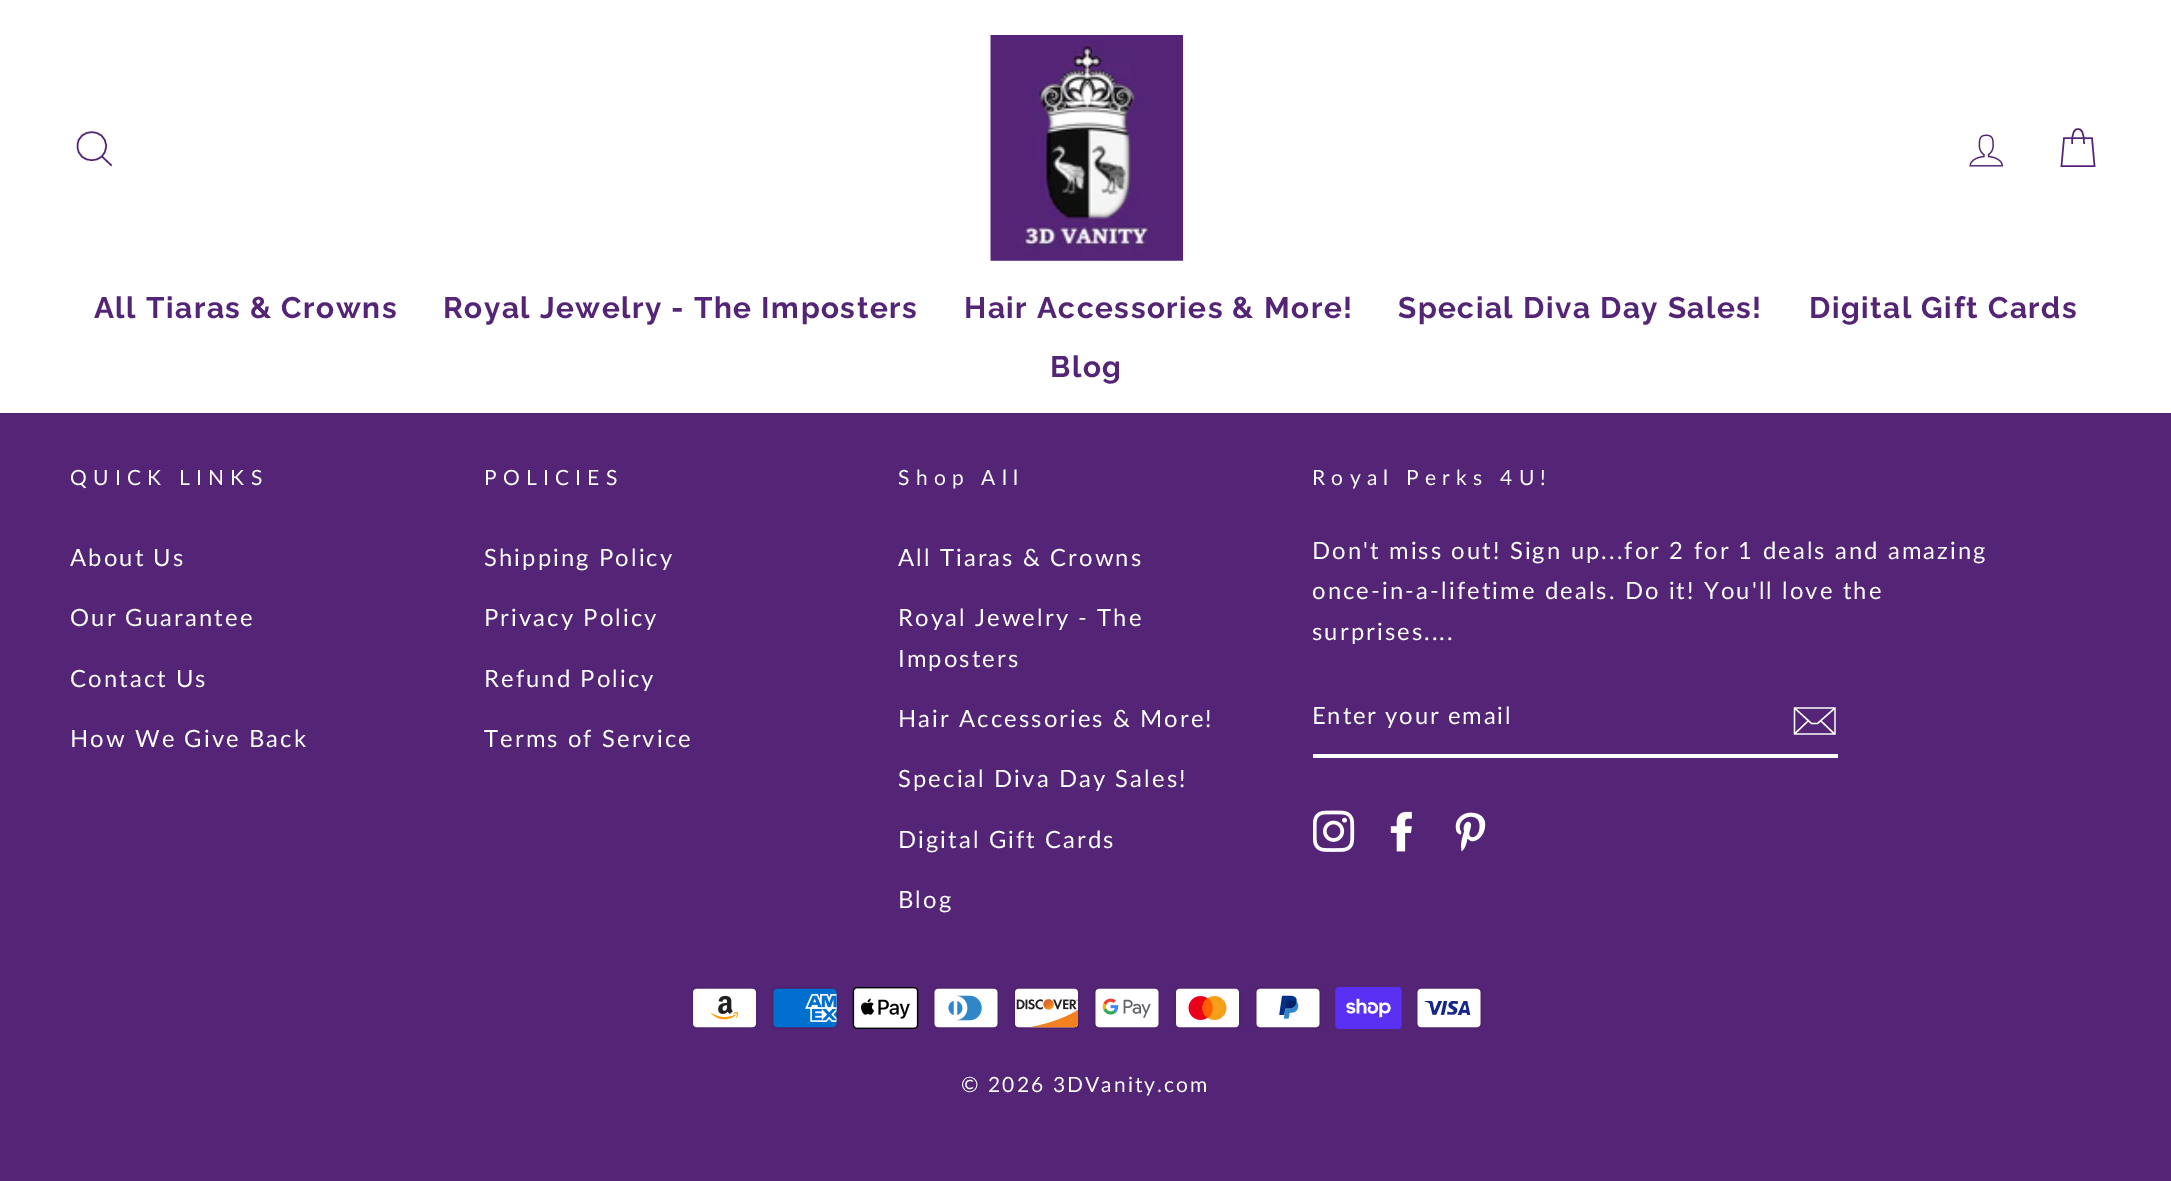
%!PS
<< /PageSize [2171 1181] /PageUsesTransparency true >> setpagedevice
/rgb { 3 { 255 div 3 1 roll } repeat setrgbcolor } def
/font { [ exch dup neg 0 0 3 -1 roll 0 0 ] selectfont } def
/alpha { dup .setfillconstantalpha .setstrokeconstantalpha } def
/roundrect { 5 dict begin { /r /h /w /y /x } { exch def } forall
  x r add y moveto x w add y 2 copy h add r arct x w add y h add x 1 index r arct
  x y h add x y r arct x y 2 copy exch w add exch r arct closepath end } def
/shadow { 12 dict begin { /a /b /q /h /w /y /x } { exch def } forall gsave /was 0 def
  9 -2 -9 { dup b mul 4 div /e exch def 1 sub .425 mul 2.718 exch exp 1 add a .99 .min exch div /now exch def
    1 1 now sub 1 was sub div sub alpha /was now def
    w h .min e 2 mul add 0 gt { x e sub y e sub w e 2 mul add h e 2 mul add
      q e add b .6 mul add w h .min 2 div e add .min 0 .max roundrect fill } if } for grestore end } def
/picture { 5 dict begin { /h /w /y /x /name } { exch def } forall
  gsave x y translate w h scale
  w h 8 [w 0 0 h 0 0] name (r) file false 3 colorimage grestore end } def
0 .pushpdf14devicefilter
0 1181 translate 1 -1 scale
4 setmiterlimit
84 37 118 rgb
0 0 2171 1181 rectfill
0 0 0 rgb
0 0 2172 413 0 1 0.2 shadow
255 255 255 rgb
0 0 2171 413 rectfill
84 37 118 rgb
1.5 setlinewidth
106 146 moveto 0 19 -28.5 19 -28.5 0 rcurveto 0 -18.5 28.5 -18.5 28.5 0 rcurveto closepath 111.5 165.5 moveto -9.5 -9 rlineto stroke
(img_01.rgb) 990 35 193 226 picture
(img_02.rgb) 1969 134 35 33 picture
2072 144 moveto 0 -12 2.5 -15 6 -15 rcurveto 3.5 0 6 3 6 15 rcurveto 2064 138 moveto 28 0 rlineto 2.5 28 rlineto -33 0 rlineto closepath stroke
255 255 255 rgb
1313 754 525 4 rectfill
1.3 setlinewidth
1835 734 moveto -40.5 0 rlineto 0 -26 rlineto 40.5 0 rlineto closepath 1794.5 708 moveto 17 15.5 rlineto 6 0 rlineto 17.5 -15.5 rlineto 1808 721 moveto -13 12.5 rlineto 1834.5 734 moveto -13.5 -13 rlineto stroke
(img_03.rgb) 1313 810 42 42 picture
(img_04.rgb) 1390 811 22 41 picture
(img_05.rgb) 1455 812 31 40 picture
(img_06.rgb) 691 987 67 42 picture
(img_07.rgb) 772 987 66 42 picture
(img_08.rgb) 852 987 67 42 picture
(img_09.rgb) 933 987 66 42 picture
(img_10.rgb) 1013 987 67 42 picture
(img_11.rgb) 1094 987 66 42 picture
(img_12.rgb) 1174 987 67 42 picture
(img_13.rgb) 1255 987 66 42 picture
(img_14.rgb) 1335 987 67 42 picture
(img_15.rgb) 1416 987 66 42 picture
/Raleway-Bold 29.75 font
84 37 118 rgb
94 318 moveto 1.5 0 (All Tiaras & Crowns) ashow
443 318 moveto 1.5 0 (Royal Jewelry - The Imposters) ashow
964 318 moveto 1.5 0 (Hair Accessories & More!) ashow
1398 318 moveto 1.5 0 (Special Diva Day Sales!) ashow
1809 318 moveto 1.5 0 (Digital Gift Cards) ashow
1050 377 moveto 1.5 0 (Blog) ashow
/Lato-Regular 21 font
255 255 255 rgb
70 485 moveto 6.25 0 (QUICK LINKS) ashow
/Lato-Regular 23.8 font
70 566 moveto 2.1 0 (About Us) ashow
70 626 moveto 2.1 0 (Our Guarantee) ashow
70 687 moveto 2.1 0 (Contact Us) ashow
70 747 moveto 2.1 0 (How We Give Back) ashow
/Lato-Regular 21 font
484 485 moveto 6.25 0 (POLICIES) ashow
/Lato-Regular 23.8 font
484 566 moveto 2.1 0 (Shipping Policy) ashow
484 626 moveto 2.1 0 (Privacy Policy) ashow
484 687 moveto 2.1 0 (Refund Policy) ashow
484 747 moveto 2.1 0 (Terms of Service) ashow
/Lato-Regular 21 font
898 485 moveto 6.25 0 (Shop All) ashow
/Lato-Regular 23.8 font
898 566 moveto 2.1 0 (All Tiaras & Crowns) ashow
898 626 moveto 2.1 0 (Royal Jewelry - The) ashow
898 667 moveto 2.1 0 (Imposters) ashow
898 727 moveto 2.1 0 (Hair Accessories & More!) ashow
898 787 moveto 2.1 0 (Special Diva Day Sales!) ashow
898 848 moveto 2.1 0 (Digital Gift Cards) ashow
898 908 moveto 2.1 0 (Blog) ashow
/Lato-Regular 21 font
1312 485 moveto 6.25 0 (Royal Perks 4U!) ashow
/Lato-Regular 23.8 font
1312 559 moveto 2.1 0 (Don't miss out! Sign up...for 2 for 1 deals and amazing) ashow
1312 599 moveto 2.1 0 (once-in-a-lifetime deals. Do it! You'll love the) ashow
1312 640 moveto 2.1 0 (surprises....) ashow
1312 724 moveto 1.75 0 (Enter your email) ashow
/Lato-Regular 21 font
961 1092 moveto 2.1 0 (© 2026 3DVanity.com) ashow
.poppdf14devicefilter showpage
